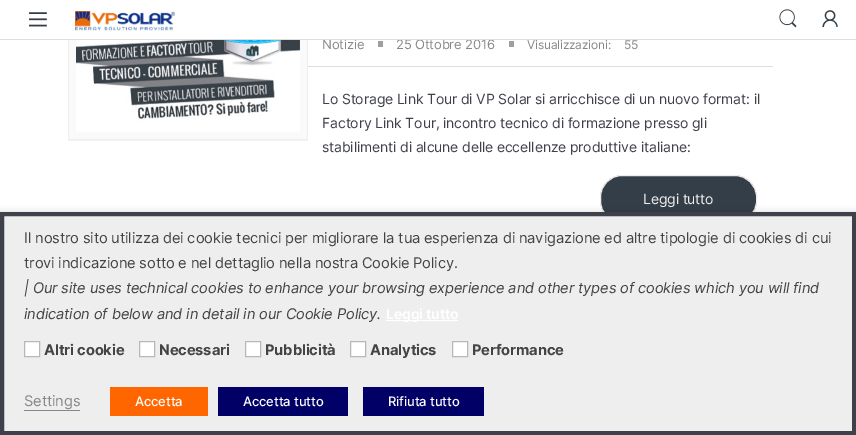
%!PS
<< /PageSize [856 435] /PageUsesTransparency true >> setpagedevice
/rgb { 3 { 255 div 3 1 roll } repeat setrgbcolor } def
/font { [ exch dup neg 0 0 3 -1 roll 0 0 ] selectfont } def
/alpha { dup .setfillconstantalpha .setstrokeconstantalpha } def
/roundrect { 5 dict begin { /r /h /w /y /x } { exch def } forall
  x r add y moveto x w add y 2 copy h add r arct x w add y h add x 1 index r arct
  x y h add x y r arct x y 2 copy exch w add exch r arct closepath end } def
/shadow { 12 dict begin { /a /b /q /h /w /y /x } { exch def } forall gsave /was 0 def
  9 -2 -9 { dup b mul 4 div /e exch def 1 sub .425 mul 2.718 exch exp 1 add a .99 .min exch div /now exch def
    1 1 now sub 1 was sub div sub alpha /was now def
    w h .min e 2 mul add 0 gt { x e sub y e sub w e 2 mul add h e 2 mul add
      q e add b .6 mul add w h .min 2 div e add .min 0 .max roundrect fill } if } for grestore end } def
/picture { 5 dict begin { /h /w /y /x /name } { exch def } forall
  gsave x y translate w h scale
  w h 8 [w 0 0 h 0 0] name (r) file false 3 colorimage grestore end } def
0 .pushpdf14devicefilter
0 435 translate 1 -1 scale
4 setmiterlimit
255 255 255 rgb
0 0 856 435 rectfill
(img_01.rgb) 29 12 18 15 picture
(img_02.rgb) 75 11 100 20 picture
(img_03.rgb) 779 9 18 19 picture
(img_04.rgb) 822 10 16 18 picture
242 242 242 rgb
68 140 240 1 rectfill
250 250 250 rgb
69 40 238 99 rectfill
239 239 239 rgb
307 40 1 100 rectfill
68 139 240 1 rectfill
68 40 1 100 rectfill
(img_05.rgb) 76 40 224 92 picture
221 221 221 rgb
308 66 465 1 rectfill
159 159 159 rgb
378 41 5 6 rectfill
509 41 5 6 rectfill
51 62 72 rgb
600.5 175.5 156 47 21.5 roundrect gsave fill grestore
239 236 236 rgb
stroke
0 0 0 rgb
0 217 856 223 0 5 0.5 shadow
238 238 238 rgb
2 214 moveto 852 0 rlineto 0 219 rlineto -852 0 rlineto closepath gsave fill grestore
62 65 74 rgb
4 setlinewidth
stroke
255 255 255 rgb
386 320 72 1 rectfill
24.5 341.5 moveto 15 0 rlineto 0 15 rlineto -15 0 rlineto closepath gsave fill grestore
180 185 190 rgb
1 setlinewidth
stroke
255 255 255 rgb
139.5 341.5 moveto 15 0 rlineto 0 15 rlineto -15 0 rlineto closepath gsave fill grestore
180 185 190 rgb
stroke
255 255 255 rgb
245.5 341.5 moveto 15 0 rlineto 0 15 rlineto -15 0 rlineto closepath gsave fill grestore
180 185 190 rgb
stroke
255 255 255 rgb
350.5 341.5 moveto 15 0 rlineto 0 15 rlineto -15 0 rlineto closepath gsave fill grestore
180 185 190 rgb
stroke
255 255 255 rgb
452.5 341.5 moveto 15 0 rlineto 0 15 rlineto -15 0 rlineto closepath gsave fill grestore
180 185 190 rgb
stroke
137 136 136 rgb
24 410 56 1 rectfill
255 102 0 rgb
110 387 98 29 rectfill
0 0 102 rgb
218 387 130 29 rectfill
363 387 121 29 rectfill
/Inter-Regular 13 font
135 135 135 rgb
322 49 moveto -0.14 0 (Notizie) ashow
396 49 moveto -0.14 0 (25 Ottobre 2016) ashow
/Inter-Regular 12 font
527 49 moveto -0.14 0 (Visualizzazioni:) ashow
221 221 221 rgb
0 39 856 1 rectfill
135 135 135 rgb
624 49 moveto -0.14 0 (55) ashow
/Inter-Regular 14 font
62 65 74 rgb
322 104 moveto -0.14 0 (Lo Storage Link Tour di VP Solar si arricchisce di un nuovo format: il) ashow
322 128 moveto -0.14 0 (Factory Link Tour, incontro tecnico di formazione presso gli) ashow
322 152 moveto -0.14 0 (stabilimenti di alcune delle eccellenze produttive italiane:) ashow
239 236 236 rgb
643 204 moveto -0.14 0 (Leggi tutto) ashow
/Inter-Regular 14.67 font
68 68 68 rgb
24 243 moveto -0.14 0 (Il nostro sito utilizza dei cookie tecnici per migliorare la tua esperienza di navigazione ed altre tipologie di cookies di cui) ashow
24 268 moveto -0.14 0 (trovi indicazione sotto e nel dettaglio nella nostra Cookie Policy.) ashow
/Inter-Italic 14.67 font
24 293 moveto -0.14 0 (| Our site uses technical cookies to enhance your browsing experience and other types of cookies which you will find) ashow
24 319 moveto -0.14 0 (indication of below and in detail in our Cookie Policy.) ashow
/Inter-SemiBold 14 font
255 255 255 rgb
386 319 moveto -0.14 0 (Leggi tutto) ashow
/Inter-Bold 14.67 font
68 68 68 rgb
44 355 moveto -0.14 0 (Altri cookie) ashow
159 355 moveto -0.14 0 (Necessari) ashow
265 355 moveto -0.14 0 (Pubblicità) ashow
370 355 moveto -0.14 0 (Analytics) ashow
472 355 moveto -0.14 0 (Performance) ashow
/Inter-Regular 14.67 font
135 135 135 rgb
24 406 moveto -0.14 0 (Settings) ashow
/Inter-Medium 13 font
255 255 255 rgb
135 406 moveto -0.14 0 (Accetta) ashow
243 406 moveto -0.14 0 (Accetta tutto) ashow
388 406 moveto -0.14 0 (Rifiuta tutto) ashow
.poppdf14devicefilter showpage
